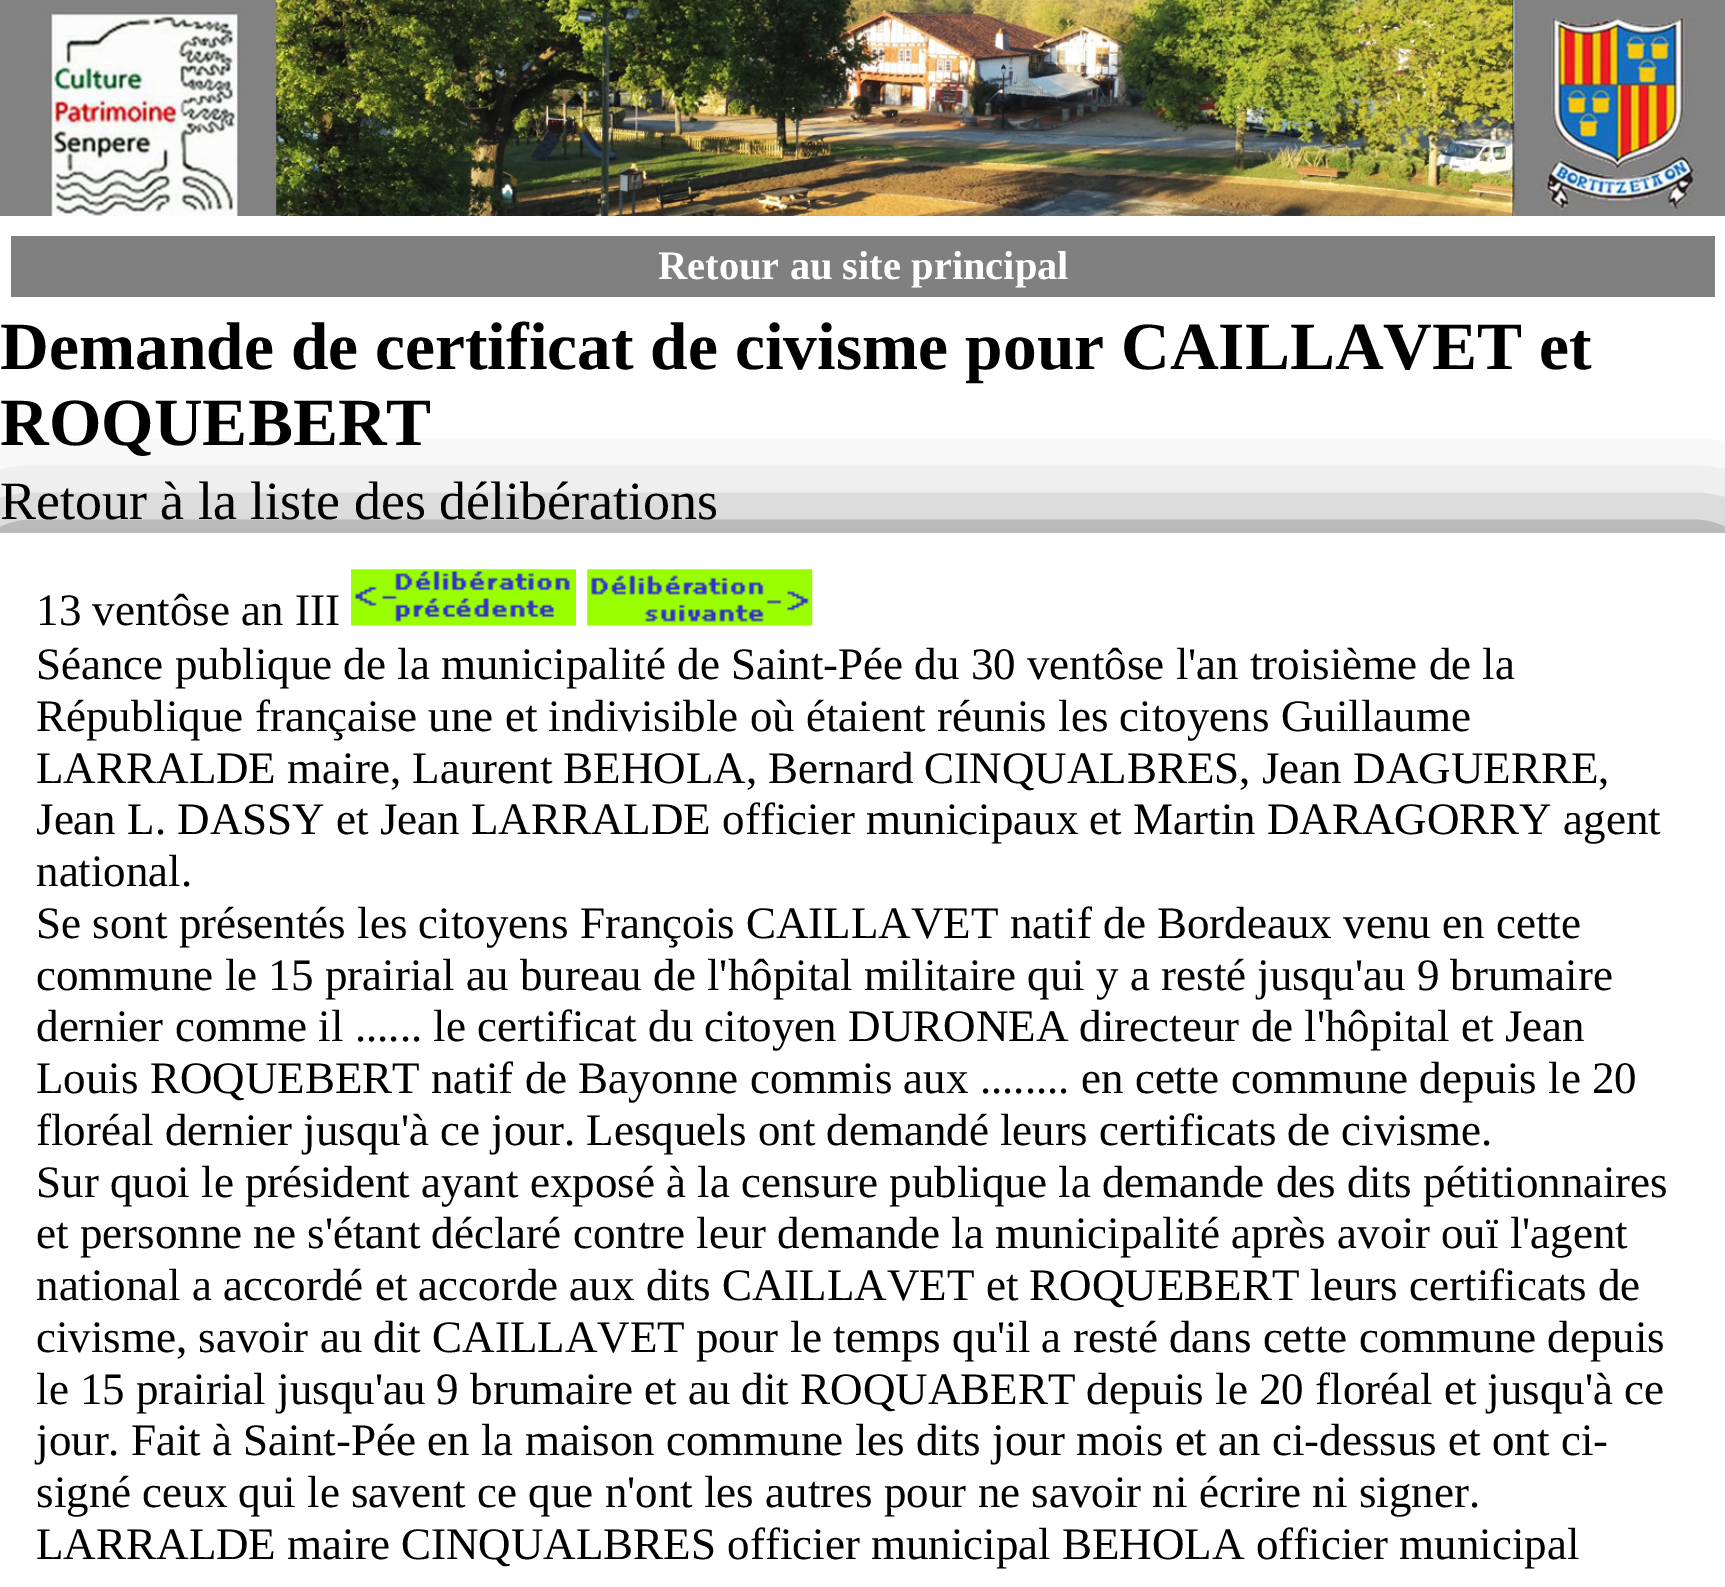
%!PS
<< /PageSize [1725 1587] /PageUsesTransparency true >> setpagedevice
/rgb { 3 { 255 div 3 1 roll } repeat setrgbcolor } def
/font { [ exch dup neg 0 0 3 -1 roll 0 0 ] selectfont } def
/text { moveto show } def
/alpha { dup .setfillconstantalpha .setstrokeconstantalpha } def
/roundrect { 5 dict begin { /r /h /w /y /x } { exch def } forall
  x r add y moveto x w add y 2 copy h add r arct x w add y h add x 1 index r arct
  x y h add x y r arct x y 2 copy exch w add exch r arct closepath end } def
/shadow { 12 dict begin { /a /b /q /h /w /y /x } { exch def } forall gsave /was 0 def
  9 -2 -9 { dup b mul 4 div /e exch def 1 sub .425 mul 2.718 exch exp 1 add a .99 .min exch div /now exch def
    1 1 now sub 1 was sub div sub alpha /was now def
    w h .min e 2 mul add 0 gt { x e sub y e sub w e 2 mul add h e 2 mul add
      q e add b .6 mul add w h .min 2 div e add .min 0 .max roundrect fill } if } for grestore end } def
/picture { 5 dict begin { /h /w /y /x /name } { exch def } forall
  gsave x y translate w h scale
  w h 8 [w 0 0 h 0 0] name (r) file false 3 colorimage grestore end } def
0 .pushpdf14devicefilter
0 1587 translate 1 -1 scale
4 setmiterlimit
255 255 255 rgb
0 0 1725 1587 rectfill
(img_01.rgb) 0 0 1725 216 picture
128 128 128 rgb
11 236 1704 61 rectfill
0 0 0 rgb
0 560 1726 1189 0 54 0.9 shadow
255 255 255 rgb
0 533 1725 1054 rectfill
(img_02.rgb) 351 569 225 57 picture
(img_03.rgb) 587 569 226 57 picture
/LiberationSerif-Bold 40.5 font
(Retour au site principal) 658 279 text
/LiberationSerif-Bold 67.5 font
0 0 0 rgb
(Demande de certificat de civisme pour CAILLAVET et) 0 369 text
(ROQUEBERT) 0 445 text
/LiberationSerif-Regular 54 font
(Retour à la liste des délibérations) 0 519 text
/LiberationSerif-Regular 45 font
(13 ventôse an III) 36 625 text
(Séance publique de la municipalité de Saint-Pée du 30 ventôse l'an troisième de la) 36 679 text
(République française une et indivisible où étaient réunis les citoyens Guillaume) 36 731 text
(LARRALDE maire, Laurent BEHOLA, Bernard CINQUALBRES, Jean DAGUERRE,) 36 783 text
(Jean L. DASSY et Jean LARRALDE officier municipaux et Martin DARAGORRY agent) 36 834 text
(national.) 36 886 text
(Se sont présentés les citoyens François CAILLAVET natif de Bordeaux venu en cette) 36 938 text
(commune le 15 prairial au bureau de l'hôpital militaire qui y a resté jusqu'au 9 brumaire) 36 990 text
(dernier comme il ...... le certificat du citoyen DURONEA directeur de l'hôpital et Jean) 36 1041 text
(Louis ROQUEBERT natif de Bayonne commis aux ........ en cette commune depuis le 20) 36 1093 text
(floréal dernier jusqu'à ce jour. Lesquels ont demandé leurs certificats de civisme.) 36 1145 text
(Sur quoi le président ayant exposé à la censure publique la demande des dits pétitionnaires) 36 1197 text
(et personne ne s'étant déclaré contre leur demande la municipalité après avoir ouï l'agent) 36 1248 text
(national a accordé et accorde aux dits CAILLAVET et ROQUEBERT leurs certificats de) 36 1300 text
(civisme, savoir au dit CAILLAVET pour le temps qu'il a resté dans cette commune depuis) 36 1352 text
(le 15 prairial jusqu'au 9 brumaire et au dit ROQUABERT depuis le 20 floréal et jusqu'à ce) 36 1404 text
(jour. Fait à Saint-Pée en la maison commune les dits jour mois et an ci-dessus et ont ci-) 36 1455 text
(signé ceux qui le savent ce que n'ont les autres pour ne savoir ni écrire ni signer.) 36 1507 text
(LARRALDE maire CINQUALBRES officier municipal BEHOLA officier municipal) 36 1559 text
.poppdf14devicefilter showpage
